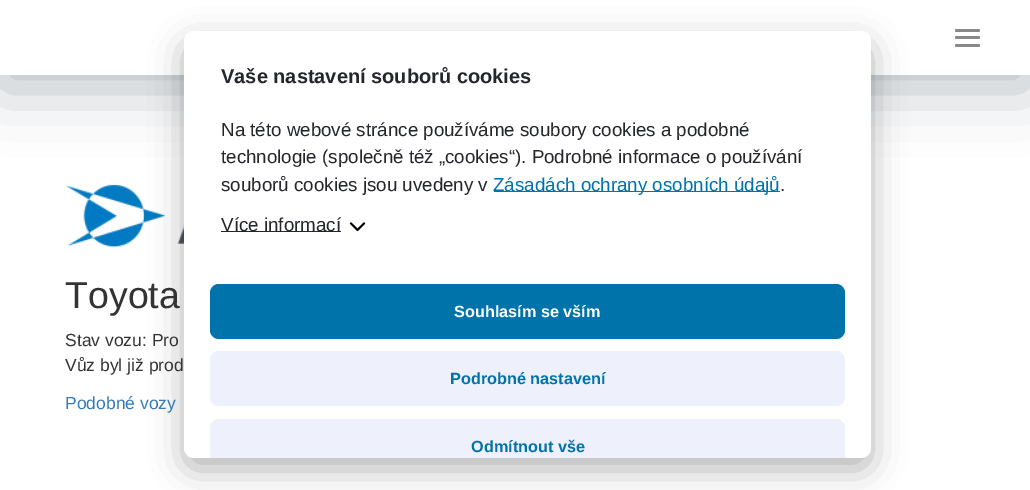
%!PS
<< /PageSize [1030 490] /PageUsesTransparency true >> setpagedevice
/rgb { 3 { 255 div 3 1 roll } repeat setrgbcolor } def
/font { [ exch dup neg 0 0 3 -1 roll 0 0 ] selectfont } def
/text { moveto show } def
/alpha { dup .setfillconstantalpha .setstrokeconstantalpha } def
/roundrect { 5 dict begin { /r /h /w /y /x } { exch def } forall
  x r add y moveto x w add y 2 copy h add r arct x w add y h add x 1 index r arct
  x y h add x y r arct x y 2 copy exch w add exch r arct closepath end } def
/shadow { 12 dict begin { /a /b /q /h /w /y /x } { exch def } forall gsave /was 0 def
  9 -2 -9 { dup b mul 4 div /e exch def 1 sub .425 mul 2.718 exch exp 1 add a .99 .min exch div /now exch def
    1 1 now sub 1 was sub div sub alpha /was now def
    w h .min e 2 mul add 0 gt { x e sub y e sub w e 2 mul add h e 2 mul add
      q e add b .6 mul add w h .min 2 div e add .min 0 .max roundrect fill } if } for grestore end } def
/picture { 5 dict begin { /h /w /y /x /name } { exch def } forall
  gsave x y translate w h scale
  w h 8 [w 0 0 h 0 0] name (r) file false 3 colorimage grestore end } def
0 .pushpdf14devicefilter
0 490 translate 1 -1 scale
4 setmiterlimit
255 255 255 rgb
0 0 1030 490 rectfill
9 33 57 rgb
0 13 1030 75 0 31 0.3 shadow
255 255 255 rgb
0 0 1030 75 rectfill
136 136 136 rgb
955 29 25 3 1.5 roundrect fill
955 36 25 3 1.5 roundrect fill
955 44 25 3 1.5 roundrect fill
(img_01.rgb) 66 184 118 64 picture
0 0 2 rgb
184 43 687 426 10 16.5 0.3 shadow
255 255 255 rgb
184 31 687 427 10 roundrect fill
0 115 170 rgb
494 191 286 1 rectfill
(img_02.rgb) 349 222 17 10 picture
36 38 43 rgb
221 231 120 1 rectfill
0 115 170 rgb
210 284 635 55 9 roundrect fill
238 240 251 rgb
210 351 635 55 9 roundrect fill
219 419 moveto 617 0 rlineto 5 0 9 4 9 9 rcurveto 0 30 rlineto -635 0 rlineto 0 -30 rlineto 0 -5 4 -9 9 -9 rcurveto closepath fill
/LiberationSans-Regular 37.5 font
51 51 51 rgb
(Toyota) 65 308 text
/LiberationSans-Regular 17.5 font
(Stav vozu: Pro) 65 346 text
(Vůz byl již prod) 65 371 text
51 122 183 rgb
(Podobné vozy) 65 409 text
/LiberationSans-Bold 20 font
36 38 43 rgb
(Vaše nastavení souborů cookies) 221 83 text
/LiberationSans-Regular 18.75 font
(Na této webové stránce používáme soubory cookies a podobné) 221 136 text
(technologie \(společně též „cookies“\). Podrobné informace o používání) 221 163 text
(souborů cookies jsou uvedeny v) 221 191 text
0 115 170 rgb
(Zásadách ochrany osobních údajů) 493 191 text
36 38 43 rgb
(.) 780 191 text
(Více informací) 221 231 text
/LiberationSans-Bold 16.25 font
255 255 255 rgb
(Souhlasím se vším) 454 317 text
0 115 170 rgb
(Podrobné nastavení) 450 384 text
(Odmítnout vše) 471 452 text
.poppdf14devicefilter showpage
